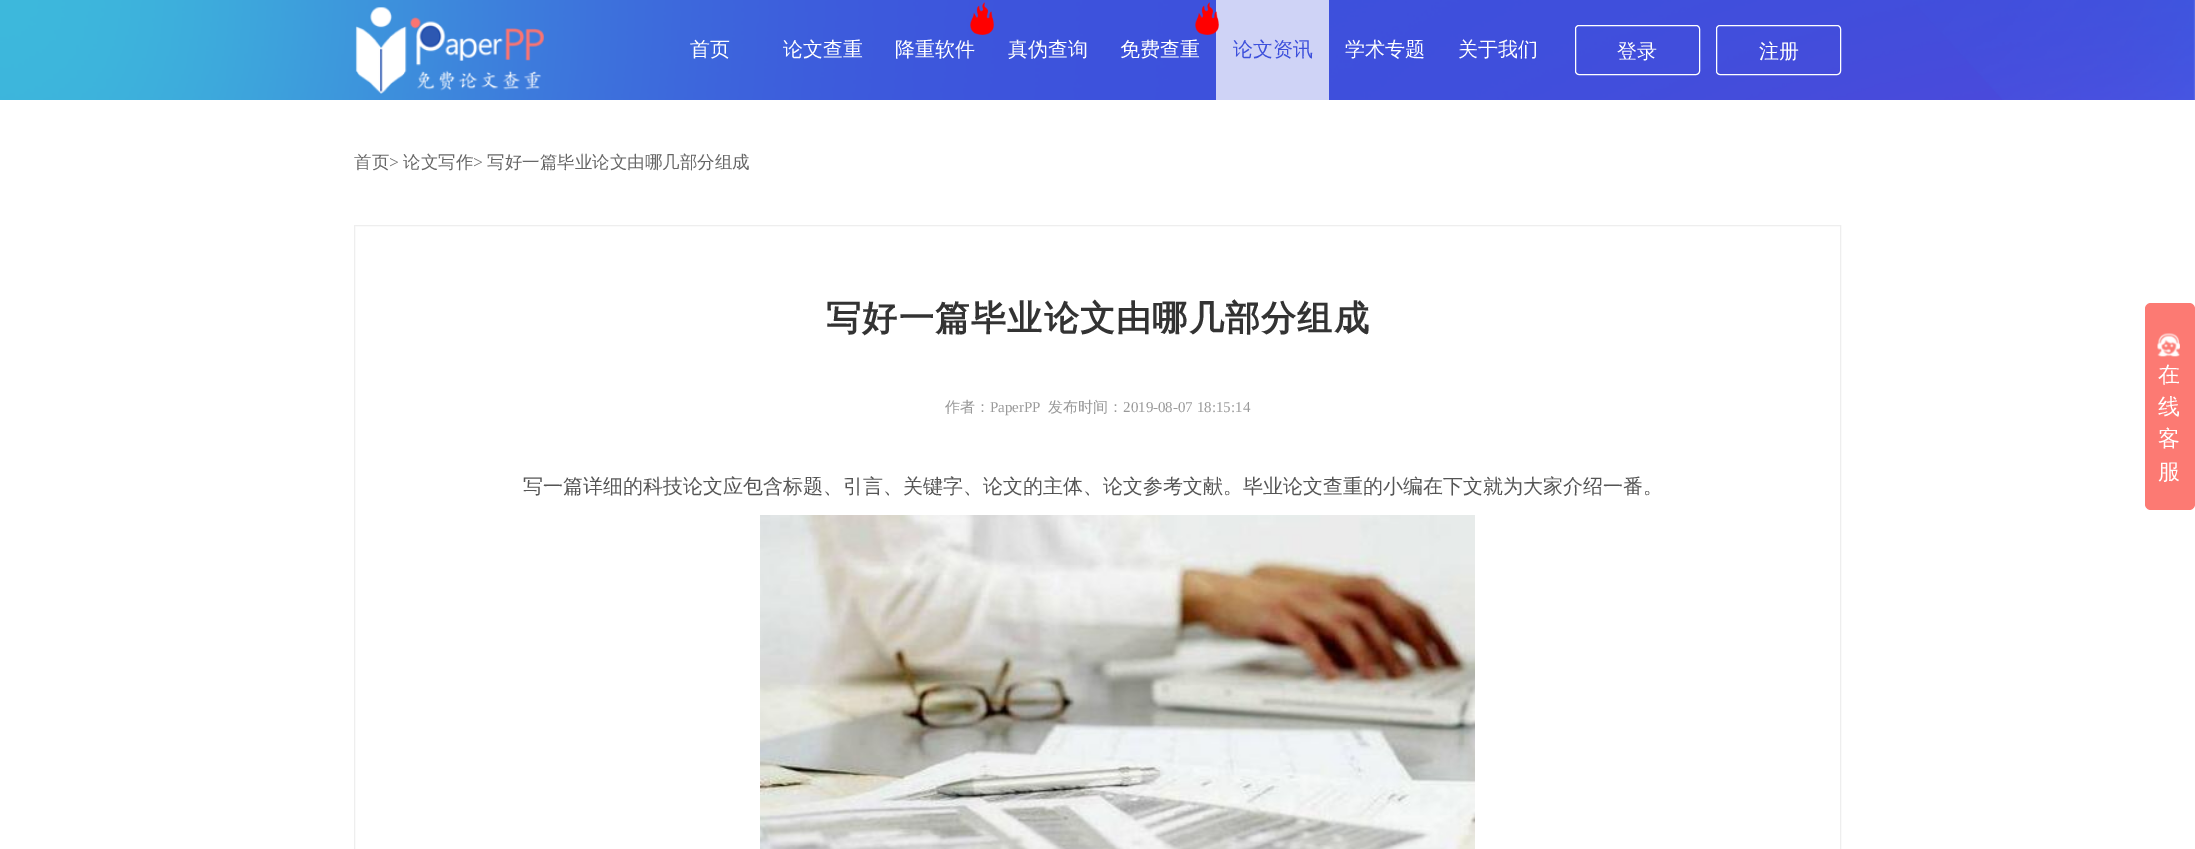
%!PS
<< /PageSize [2195 849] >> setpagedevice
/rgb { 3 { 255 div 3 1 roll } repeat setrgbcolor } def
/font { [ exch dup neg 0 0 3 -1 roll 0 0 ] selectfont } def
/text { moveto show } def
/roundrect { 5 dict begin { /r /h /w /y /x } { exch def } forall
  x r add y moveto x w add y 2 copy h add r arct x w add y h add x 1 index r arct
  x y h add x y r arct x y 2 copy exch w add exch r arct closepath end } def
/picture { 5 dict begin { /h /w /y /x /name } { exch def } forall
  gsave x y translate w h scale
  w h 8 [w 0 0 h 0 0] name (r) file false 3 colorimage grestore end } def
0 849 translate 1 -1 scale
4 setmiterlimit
255 255 255 rgb
0 0 2195 849 rectfill
(img_01.rgb) 0 0 2195 100 picture
(img_02.rgb) 355 7 189 87 picture
(img_03.rgb) 970 2 24 33 picture
207 211 246 rgb
1216 0 113 100 rectfill
(img_04.rgb) 1195 2 24 33 picture
255 255 255 rgb
1575.5 25.5 124 49 3.5 roundrect stroke
1716.5 25.5 124 49 3.5 roundrect stroke
238 238 238 rgb
354.5 225.5 1486 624 rectstroke
(img_05.rgb) 760 515 715 334 picture
252 122 115 rgb
2145 303 50 207 6 roundrect fill
(img_06.rgb) 2157 333 23 24 picture
/WenQuanYiZenHei-Medium 20 font
255 255 255 rgb
(首页) 690 56 text
(论文查重) 783 56 text
(降重软件) 895 56 text
(真伪查询) 1008 56 text
(免费查重) 1120 56 text
61 80 220 rgb
(论文资讯) 1233 56 text
255 255 255 rgb
(学术专题) 1345 56 text
(关于我们) 1458 56 text
(登录) 1617 58 text
(注册) 1759 58 text
/WenQuanYiZenHei-Medium 17.5 font
102 102 102 rgb
(首页) 354 168 text
/LiberationSerif-Regular 17.5 font
(>) 389 168 text
/WenQuanYiZenHei-Medium 17.5 font
(论文写作) 403 168 text
/LiberationSerif-Regular 17.5 font
(>) 473 168 text
/WenQuanYiZenHei-Medium 17.5 font
(写好一篇毕业论文由哪几部分组成) 487 168 text
/WenQuanYiZenHei-Bold 35 font
51 51 51 rgb
826 330 moveto 1.25 0 (写好一篇毕业论文由哪几部分组成) ashow
/WenQuanYiZenHei-Medium 15 font
153 153 153 rgb
(作者：) 945 412 text
/LiberationSerif-Regular 15 font
(PaperPP) 990 412 text
/WenQuanYiZenHei-Medium 15 font
(发布时间：) 1048 412 text
/LiberationSerif-Regular 15 font
(2019-08-07 18:15:14) 1123 412 text
/WenQuanYiZenHei-Medium 20 font
85 85 85 rgb
(写一篇详细的科技论文应包含标题、引言、关键字、论文的主体、论文参考文献。毕业论文查重的小编在下文就为大家介绍一番。) 523 493 text
/WenQuanYiZenHei-Medium 22 font
255 255 255 rgb
(在) 2158 382 text
(线) 2158 414 text
(客) 2158 446 text
(服) 2158 479 text
showpage
